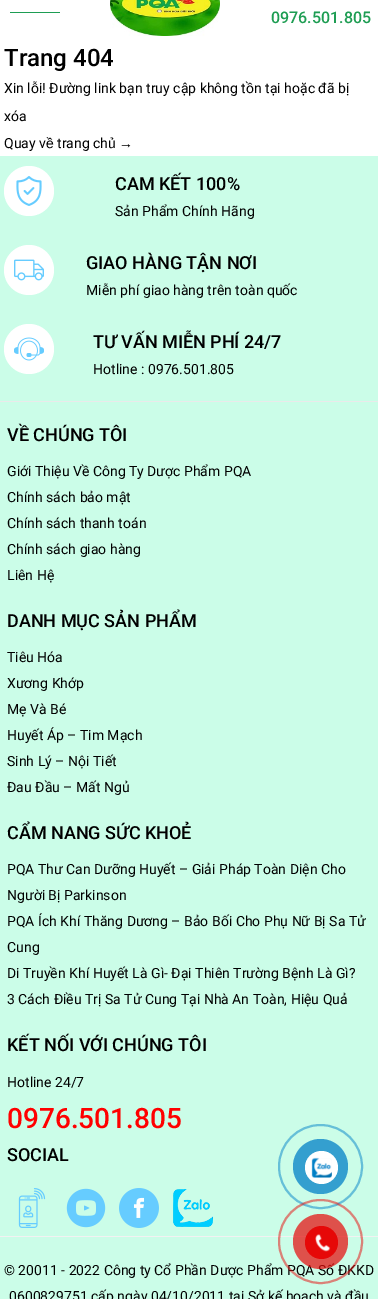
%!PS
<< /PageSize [378 1299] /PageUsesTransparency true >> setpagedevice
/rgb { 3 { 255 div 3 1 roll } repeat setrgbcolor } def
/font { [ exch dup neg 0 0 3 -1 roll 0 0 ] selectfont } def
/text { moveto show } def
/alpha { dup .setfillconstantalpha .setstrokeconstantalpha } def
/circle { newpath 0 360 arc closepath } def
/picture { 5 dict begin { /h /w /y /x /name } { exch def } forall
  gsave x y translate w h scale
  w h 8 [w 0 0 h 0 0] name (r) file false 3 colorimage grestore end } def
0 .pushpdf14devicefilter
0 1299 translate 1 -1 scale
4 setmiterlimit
255 255 255 rgb
0 0 378 1299 rectfill
30 157 83 rgb
10 12 50 1 rectfill
(img_01.rgb) 110 0 110 36 picture
203 253 232 rgb
0 156 378 1143 rectfill
102 191 216 rgb
2 setlinewidth
320.5 1166.5 41.5 circle stroke
52 159 207 rgb
320.5 1166.5 27.5 circle fill
255 255 255 rgb
321.5 1167.5 16.5 circle fill
(img_02.rgb) 311 1157 21 21 picture
234 234 234 rgb
0 401 378 1 rectfill
255 255 255 rgb
29 191 25 circle fill
(img_04.rgb) 16 176 26 30 picture
29 270 25 circle fill
(img_05.rgb) 14 259 30 22 picture
29 349 25 circle fill
(img_06.rgb) 14 337 30 24 picture
(img_07.rgb) 18 1188 28 40 picture
(img_08.rgb) 66 1188 40 40 picture
(img_09.rgb) 119 1188 40 40 picture
(img_10.rgb) 173 1189 40 38 picture
242 242 242 rgb
0 1236 378 1 rectfill
/Roboto-Medium 16 font
30 157 83 rgb
(0976.501.805) 271 23 text
/Roboto-Medium 24 font
0 0 0 rgb
(Trang 404) 4 66 text
/Roboto-Regular 14 font
(Xin lỗi! Đường link bạn truy cập không tồn tại hoặc đã bị) 4 93 text
(xóa) 4 121 text
(Quay v) 4 148 text
/LiberationSans-Regular 14 font
(ề) 46 148 text
/Roboto-Regular 14 font
(trang ch) 57 148 text
/LiberationSans-Regular 14 font
(ủ) 108 148 text
(→) 119 148 text
/Roboto-Medium 18 font
(CAM KẾT 100%) 115 190 text
/Roboto-Regular 14 font
(Sản Phẩm Chính Hãng) 115 216 text
/Roboto-Medium 18 font
(GIAO HÀNG TẬN NƠI) 86 269 text
/Roboto-Regular 14 font
(Miễn phí giao hàng trên toàn quốc) 86 295 text
/Roboto-Medium 18 font
(TƯ VẤN MIỄN PHÍ 24/7) 93 348 text
/Roboto-Regular 14 font
(Hotline : 0976.501.805) 93 374 text
/Roboto-Medium 18 font
(VỀ CHÚNG TÔI) 7 441 text
/Roboto-Regular 14 font
(Giới Thiệu Về Công Ty Dược Phẩm PQA) 7 476 text
(Chính sách bảo mật) 7 502 text
(Chính sách thanh toán) 7 528 text
(Chính sách giao hàng) 7 554 text
(Liên Hệ) 7 580 text
/Roboto-Medium 18 font
(DANH MỤC SẢN PHẨM) 7 627 text
/Roboto-Regular 14 font
(Tiêu Hóa) 7 662 text
(Xương Khớp) 7 688 text
(Mẹ Và Bé) 7 714 text
(Huyết Áp – Tim Mạch) 7 740 text
(Sinh Lý – Nội Tiết) 7 766 text
(Đau Đầu – Mất Ngủ) 7 792 text
/Roboto-Medium 18 font
(CẨM NANG SỨC KHOẺ) 7 839 text
/Roboto-Regular 14 font
(PQA Thư Can Dưỡng Huyết – Giải Pháp Toàn Diện Cho) 7 874 text
(Người Bị Parkinson) 7 900 text
(PQA Ích Khí Thăng Dương – Bảo Bối Cho Phụ Nữ Bị Sa Tử) 7 926 text
(Cung) 7 952 text
(Di Truyền Khí Huyết Là Gì- Đại Thiên Trường Bệnh Là Gì?) 7 978 text
(3 Cách Điều Trị Sa Tử Cung Tại Nhà An Toàn, Hiệu Quả) 7 1004 text
/Roboto-Medium 18 font
(KẾT NỐI VỚI CHÚNG TÔI) 7 1051 text
/Roboto-Regular 14 font
(Hotline 24/7) 7 1087 text
/Roboto-Medium 28 font
255 0 0 rgb
(0976.501.805) 7 1128 text
/Roboto-Medium 18 font
0 0 0 rgb
(SOCIAL) 7 1161 text
/Roboto-Regular 14 font
(© 20011 - 2022 Công ty Cổ Phần Dược Phẩm PQA Số ĐKKD) 4 1275 text
0.5 alpha
230 8 8 rgb
320.5 1241.5 41.5 circle stroke
0.7 alpha
320.5 1241.5 27.5 circle fill
1 alpha
321.5 1242.5 16.5 circle fill
(img_03.rgb) 315 1234 16 18 picture
0 0 0 rgb
(0600829751 cấp ngày 04/10/2011 tại Sở kế hoạch và đầu) 9 1301 text
.poppdf14devicefilter showpage
